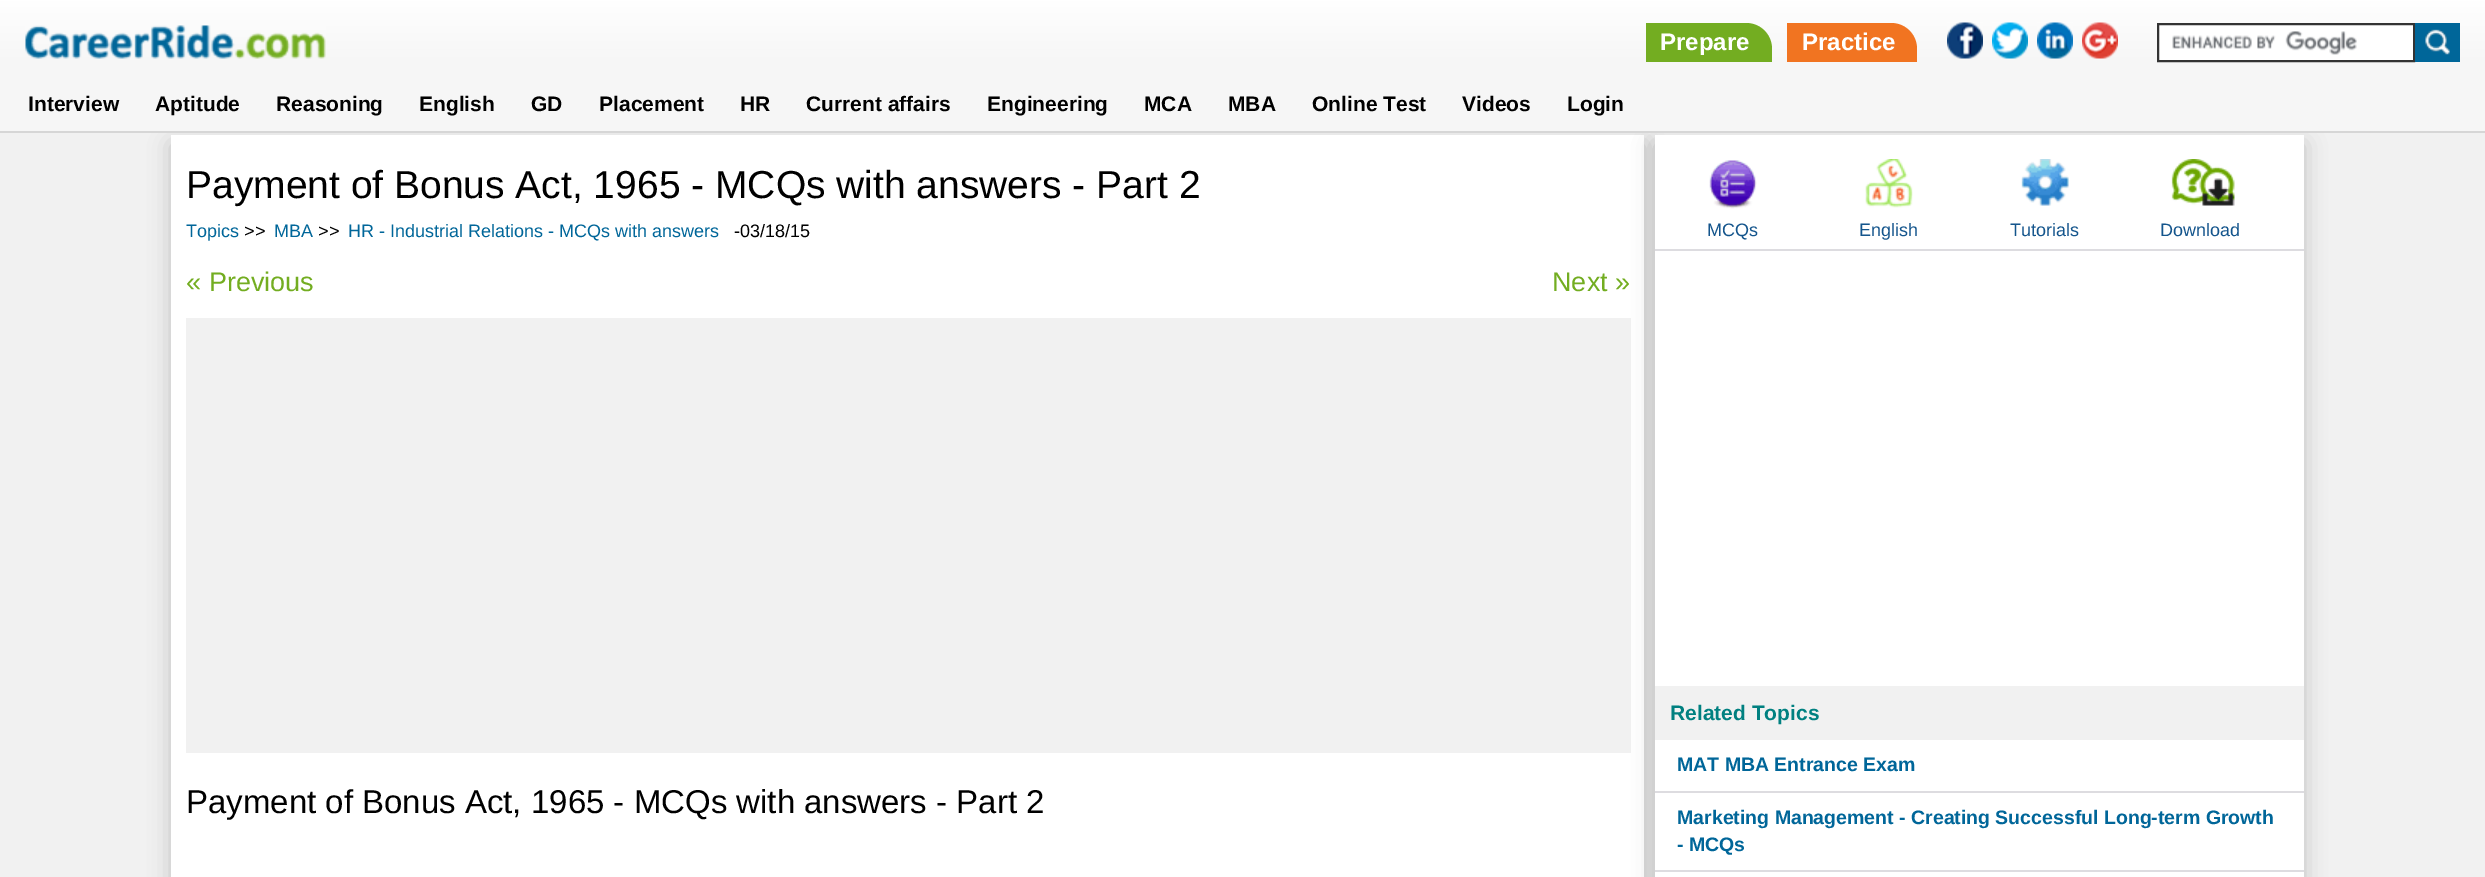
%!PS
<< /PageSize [2485 877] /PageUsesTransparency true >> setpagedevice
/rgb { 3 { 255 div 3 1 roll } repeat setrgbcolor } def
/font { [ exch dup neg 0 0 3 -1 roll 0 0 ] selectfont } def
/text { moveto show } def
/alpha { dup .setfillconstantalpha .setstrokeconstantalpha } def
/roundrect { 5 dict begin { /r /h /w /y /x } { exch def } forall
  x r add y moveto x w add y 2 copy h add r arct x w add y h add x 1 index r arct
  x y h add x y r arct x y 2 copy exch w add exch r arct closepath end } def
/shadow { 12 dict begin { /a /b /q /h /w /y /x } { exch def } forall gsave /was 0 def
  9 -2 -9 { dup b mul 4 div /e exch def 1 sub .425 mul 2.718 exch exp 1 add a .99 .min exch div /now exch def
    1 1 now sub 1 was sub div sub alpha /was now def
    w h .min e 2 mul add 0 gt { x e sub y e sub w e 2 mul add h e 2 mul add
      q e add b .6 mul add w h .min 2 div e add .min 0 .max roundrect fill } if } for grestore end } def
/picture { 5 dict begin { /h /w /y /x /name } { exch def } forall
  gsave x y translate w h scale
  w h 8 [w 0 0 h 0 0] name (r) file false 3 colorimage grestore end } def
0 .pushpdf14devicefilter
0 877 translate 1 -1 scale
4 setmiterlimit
241 241 241 rgb
0 0 2485 877 rectfill
0 0 0 rgb
171 144 1473 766 0 11 0.2 shadow
255 255 255 rgb
171 135 1473 742 rectfill
241 241 241 rgb
186 318 1445 435 rectfill
0 0 0 rgb
1655 144 649 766 0 11 0.2 shadow
gsave 0 0 moveto 2485 0 rlineto 0 131 rlineto -2485 0 rlineto closepath clip newpath
<< /ShadingType 2 /ColorSpace /DeviceRGB /Coords [1243 131 1243 0] /Extend [true true] /Function << /FunctionType 3 /Domain [0 1] /Functions [<< /FunctionType 2 /Domain [0 1] /C0 [0.965 0.965 0.965] /C1 [0.965 0.965 0.965] /N 1 >> << /FunctionType 2 /Domain [0 1] /C0 [0.965 0.965 0.965] /C1 [1 1 1] /N 1 >>] /Bounds [0.54] /Encode [0 1 0 1] >> >> shfill grestore
214 214 214 rgb
0 131 2485 2 rectfill
(img_01.rgb) 25 25 301 34 picture
115 173 33 rgb
1646 23 moveto 100 0 rlineto 14.5 0 26 11.5 26 26 rcurveto 0 13 rlineto -126 0 rlineto closepath fill
241 116 33 rgb
1787 23 moveto 104 0 rlineto 14.5 0 26 11.5 26 26 rcurveto 0 13 rlineto -130 0 rlineto closepath fill
(img_02.rgb) 1947 22 36 37 picture
(img_03.rgb) 1992 22 36 37 picture
(img_04.rgb) 2037 22 36 37 picture
(img_05.rgb) 2082 22 36 37 picture
255 255 255 rgb
2159 25 254 35 rectfill
(img_06.rgb) 2172 31 185 24 picture
51 51 51 rgb
2 setlinewidth
2158 24 256 37 rectstroke
0 102 153 rgb
2415 23 45 39 rectfill
(img_07.rgb) 2425 29 25 26 picture
255 255 255 rgb
1655 135 649 742 rectfill
221 220 224 rgb
1655 249 649 2 rectfill
(img_08.rgb) 1709 160 48 49 picture
(img_09.rgb) 1865 159 48 49 picture
(img_10.rgb) 2021 159 48 47 picture
(img_11.rgb) 2171 159 64 47 picture
241 241 241 rgb
1655 686 649 54 rectfill
221 220 224 rgb
1655 791 649 2 rectfill
1655 870 649 2 rectfill
/LiberationSans-Bold 24 font
255 255 255 rgb
(Prepare) 1660 50 text
(Practice) 1802 50 text
/LiberationSans-Bold 21 font
0 0 0 rgb
(Interview) 28 111 text
(Aptitude) 155 111 text
(Reasoning) 276 111 text
(English) 419 111 text
(GD) 531 111 text
(Placement) 599 111 text
(HR) 740 111 text
(Current affairs) 806 111 text
(Engineering) 987 111 text
(MCA) 1144 111 text
(MBA) 1228 111 text
(Online Test) 1312 111 text
(Videos) 1462 111 text
(Login) 1567 111 text
/LiberationSans-Regular 39 font
(Payment of Bonus Act, 1965 - MCQs with answers - Part 2) 186 198 text
/LiberationSans-Regular 18 font
0 102 153 rgb
(Topics) 186 237 text
0 0 0 rgb
(>>) 244 237 text
0 102 153 rgb
(MBA) 274 237 text
0 0 0 rgb
(>>) 318 237 text
0 102 153 rgb
(HR - Industrial Relations - MCQs with answers) 348 237 text
0 0 0 rgb
(-03/18/15) 734 237 text
/LiberationSans-Regular 27 font
115 173 33 rgb
(« Previous) 186 291 text
(Next ») 1552 291 text
/LiberationSans-Regular 33 font
0 0 0 rgb
(Payment of Bonus Act, 1965 - MCQs with answers - Part 2) 186 813 text
/LiberationSans-Regular 18 font
20 85 140 rgb
(MCQs) 1707 236 text
(English) 1859 236 text
(Tutorials) 2010 236 text
(Download) 2160 236 text
/LiberationSans-Bold 21 font
0 128 128 rgb
(Related Topics) 1670 720 text
/LiberationSans-Bold 19.5 font
0 102 153 rgb
(MAT MBA Entrance Exam) 1677 771 text
(Marketing Management - Creating Successful Long-term Growth) 1677 824 text
(- MCQs) 1677 851 text
.poppdf14devicefilter showpage
